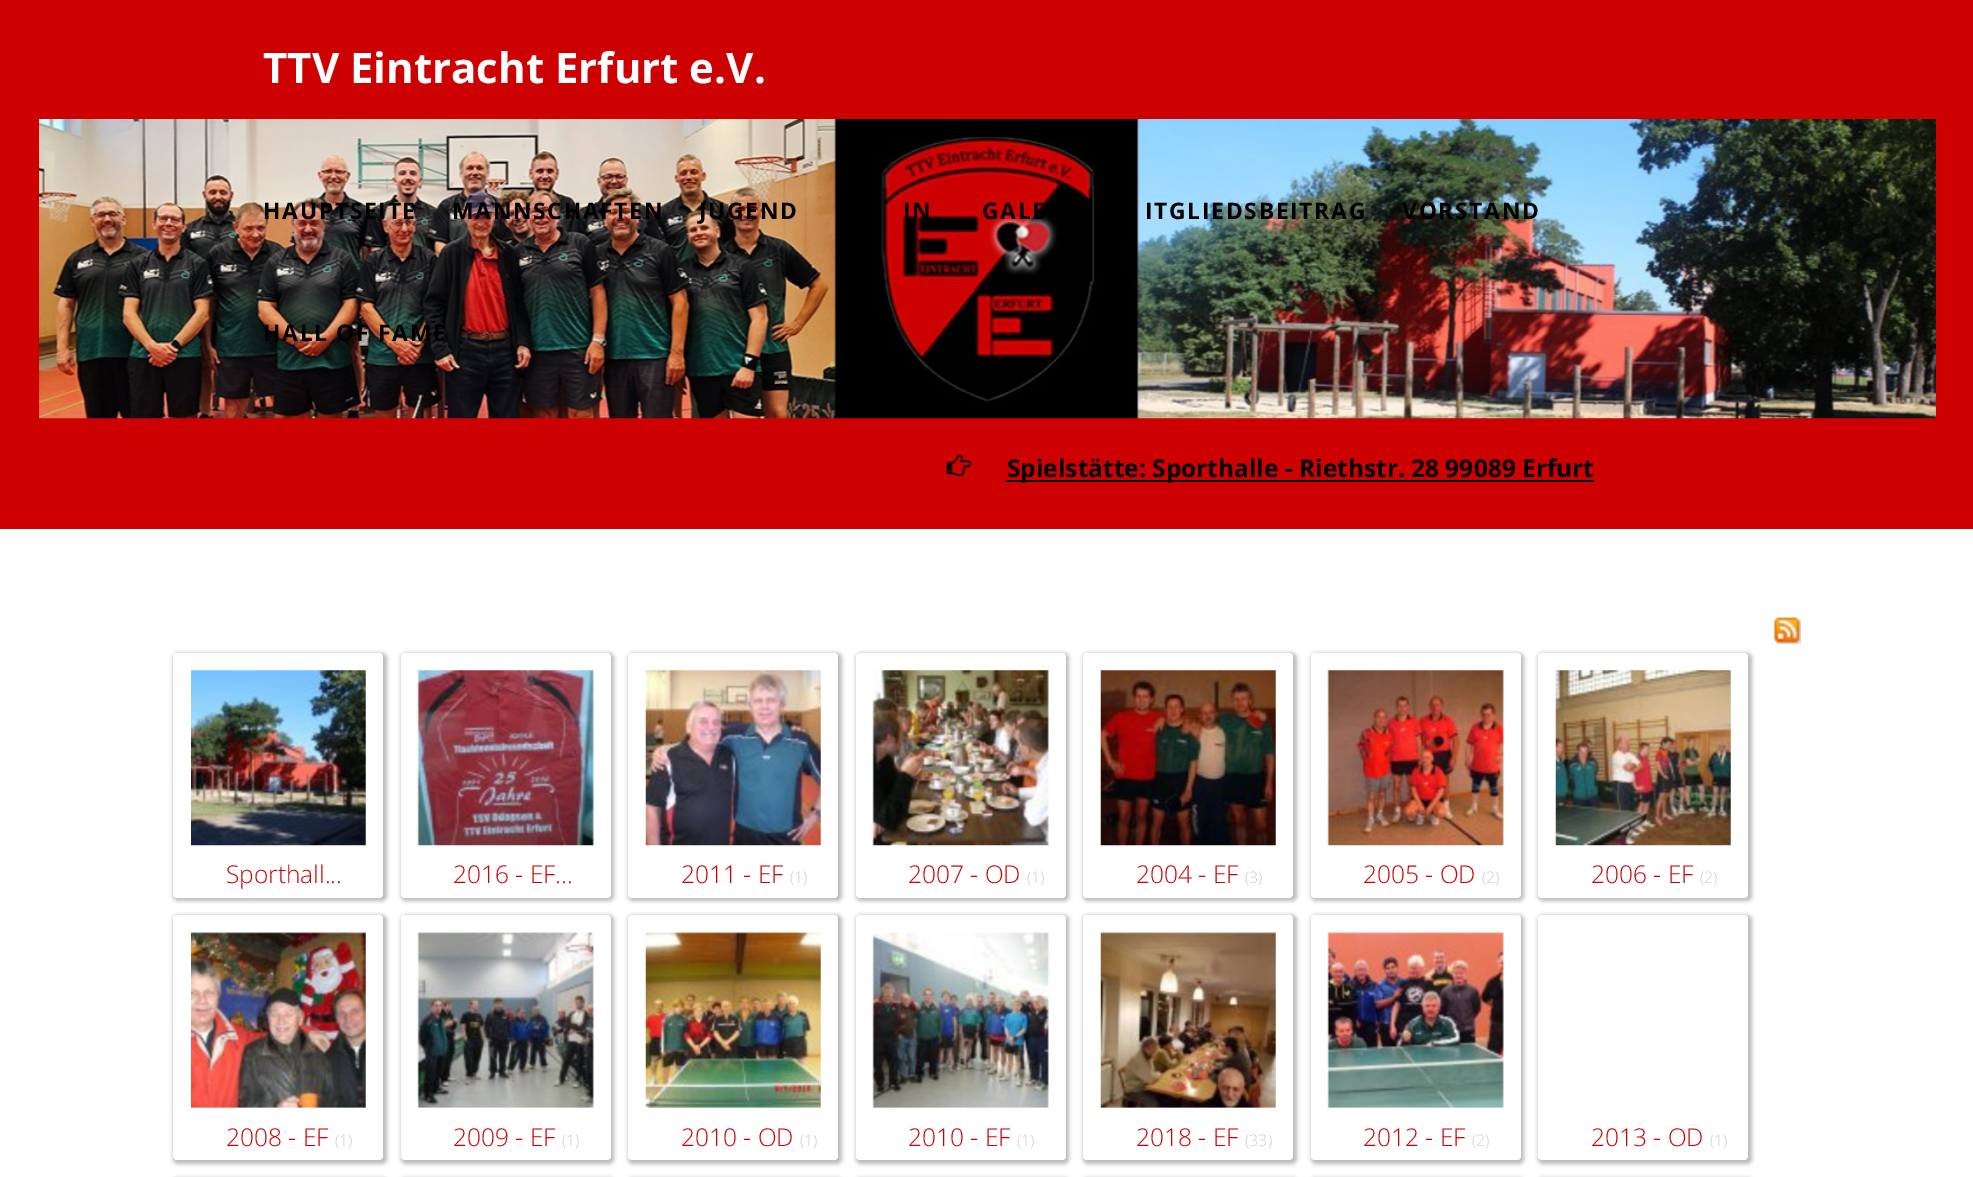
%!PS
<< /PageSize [1973 1177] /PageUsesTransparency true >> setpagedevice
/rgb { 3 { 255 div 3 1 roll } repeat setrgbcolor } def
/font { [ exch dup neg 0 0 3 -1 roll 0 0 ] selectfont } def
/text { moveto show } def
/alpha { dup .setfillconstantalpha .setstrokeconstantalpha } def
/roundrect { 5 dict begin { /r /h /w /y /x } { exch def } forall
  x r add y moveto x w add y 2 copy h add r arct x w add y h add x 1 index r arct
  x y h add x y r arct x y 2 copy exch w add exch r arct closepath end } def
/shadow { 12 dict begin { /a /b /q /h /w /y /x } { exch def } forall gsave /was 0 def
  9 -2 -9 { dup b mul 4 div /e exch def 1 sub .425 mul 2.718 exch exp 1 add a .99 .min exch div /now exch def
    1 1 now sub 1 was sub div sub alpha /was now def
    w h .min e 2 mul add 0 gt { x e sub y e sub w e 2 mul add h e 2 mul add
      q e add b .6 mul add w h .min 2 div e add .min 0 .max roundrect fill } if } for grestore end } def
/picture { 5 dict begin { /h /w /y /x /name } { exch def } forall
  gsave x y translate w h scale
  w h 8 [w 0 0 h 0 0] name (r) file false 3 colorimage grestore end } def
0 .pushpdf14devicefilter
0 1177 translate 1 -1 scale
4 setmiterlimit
255 255 255 rgb
0 0 1973 1177 rectfill
205 1 2 rgb
0 0 1973 529 rectfill
(img_01.rgb) 39 119 1897 300 picture
(img_02.rgb) 946 454 26 23 picture
0 0 0 rgb
1006 480 588 2 rectfill
(img_03.rgb) 1773 617 28 28 picture
120 120 120 rgb
173 653 214 248 5 2 0.5 shadow
255 255 255 rgb
173 653 210 245 4 roundrect fill
(img_04.rgb) 191 670 175 176 picture
120 120 120 rgb
401 653 213 248 5 2 0.5 shadow
255 255 255 rgb
401 653 210 245 4 roundrect fill
(img_05.rgb) 417 670 177 176 picture
120 120 120 rgb
628 653 214 248 5 2 0.5 shadow
255 255 255 rgb
628 653 210 245 4 roundrect fill
(img_06.rgb) 645 670 176 176 picture
120 120 120 rgb
856 653 213 248 5 2 0.5 shadow
255 255 255 rgb
856 653 210 245 4 roundrect fill
(img_07.rgb) 872 670 177 176 picture
120 120 120 rgb
1083 653 214 248 5 2 0.5 shadow
255 255 255 rgb
1083 653 210 245 4 roundrect fill
(img_08.rgb) 1100 670 176 176 picture
120 120 120 rgb
1311 653 213 248 5 2 0.5 shadow
255 255 255 rgb
1311 653 210 245 4 roundrect fill
(img_09.rgb) 1327 670 177 176 picture
120 120 120 rgb
1538 653 214 248 5 2 0.5 shadow
255 255 255 rgb
1538 653 210 245 4 roundrect fill
(img_10.rgb) 1555 670 176 176 picture
120 120 120 rgb
173 915 214 249 5 2 0.5 shadow
255 255 255 rgb
173 915 210 245 4 roundrect fill
(img_11.rgb) 191 932 175 176 picture
120 120 120 rgb
401 915 213 249 5 2 0.5 shadow
255 255 255 rgb
401 915 210 245 4 roundrect fill
(img_12.rgb) 417 932 177 176 picture
120 120 120 rgb
628 915 214 249 5 2 0.5 shadow
255 255 255 rgb
628 915 210 245 4 roundrect fill
(img_13.rgb) 645 932 176 176 picture
120 120 120 rgb
856 915 213 249 5 2 0.5 shadow
255 255 255 rgb
856 915 210 245 4 roundrect fill
(img_14.rgb) 872 932 177 176 picture
120 120 120 rgb
1083 915 214 249 5 2 0.5 shadow
255 255 255 rgb
1083 915 210 245 4 roundrect fill
(img_15.rgb) 1100 932 176 176 picture
120 120 120 rgb
1311 915 213 249 5 2 0.5 shadow
255 255 255 rgb
1311 915 210 245 4 roundrect fill
(img_16.rgb) 1327 932 177 176 picture
120 120 120 rgb
1538 915 214 249 5 2 0.5 shadow
255 255 255 rgb
1538 915 210 245 4 roundrect fill
120 120 120 rgb
173 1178 214 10 5 2 0.5 shadow
401 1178 213 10 5 2 0.5 shadow
628 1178 214 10 5 2 0.5 shadow
856 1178 213 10 5 2 0.5 shadow
1083 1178 214 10 5 2 0.5 shadow
1311 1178 213 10 5 2 0.5 shadow
1538 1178 214 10 5 2 0.5 shadow
/OpenSans-Bold 42 font
255 255 255 rgb
(TTV Eintracht Erfurt e.V.) 263 83 text
/OpenSans-Bold 22.75 font
0 0 0 rgb
263 219 moveto 1.75 0 (HAUPTSEITE) ashow
452 219 moveto 1.75 0 (MANNSCHAFTEN) ashow
699 219 moveto 1.75 0 (JUGEND) ashow
903 219 moveto 1.75 0 (IN) ashow
982 219 moveto 1.75 0 (GALE) ashow
1145 219 moveto 1.75 0 (ITGLIEDSBEITRAG) ashow
1402 219 moveto 1.75 0 (VORSTAND) ashow
263 341 moveto 1.75 0 (HALL OF FAME) ashow
/OpenSans-Bold 24.5 font
(Spielstätte: Sporthalle - Riethstr. 28 99089 Erfurt) 1007 477 text
/OpenSans-Light 24.5 font
205 1 2 rgb
(Sporthall...) 226 883 text
(2016 - EF...) 453 883 text
(2011 - EF) 681 883 text
/OpenSans-Light 16 font
204 204 204 rgb
(\(1\)) 790 883 text
/OpenSans-Light 24.5 font
205 1 2 rgb
(2007 - OD) 908 883 text
/OpenSans-Light 16 font
204 204 204 rgb
(\(1\)) 1027 883 text
/OpenSans-Light 24.5 font
205 1 2 rgb
(2004 - EF) 1136 883 text
/OpenSans-Light 16 font
204 204 204 rgb
(\(3\)) 1245 883 text
/OpenSans-Light 24.5 font
205 1 2 rgb
(2005 - OD) 1363 883 text
/OpenSans-Light 16 font
204 204 204 rgb
(\(2\)) 1482 883 text
/OpenSans-Light 24.5 font
205 1 2 rgb
(2006 - EF) 1591 883 text
/OpenSans-Light 16 font
204 204 204 rgb
(\(2\)) 1700 883 text
/OpenSans-Light 24.5 font
205 1 2 rgb
(2008 - EF) 226 1146 text
/OpenSans-Light 16 font
204 204 204 rgb
(\(1\)) 335 1146 text
/OpenSans-Light 24.5 font
205 1 2 rgb
(2009 - EF) 453 1146 text
/OpenSans-Light 16 font
204 204 204 rgb
(\(1\)) 562 1146 text
/OpenSans-Light 24.5 font
205 1 2 rgb
(2010 - OD) 681 1146 text
/OpenSans-Light 16 font
204 204 204 rgb
(\(1\)) 800 1146 text
/OpenSans-Light 24.5 font
205 1 2 rgb
(2010 - EF) 908 1146 text
/OpenSans-Light 16 font
204 204 204 rgb
(\(1\)) 1017 1146 text
/OpenSans-Light 24.5 font
205 1 2 rgb
(2018 - EF) 1136 1146 text
/OpenSans-Light 16 font
204 204 204 rgb
(\(33\)) 1245 1146 text
/OpenSans-Light 24.5 font
205 1 2 rgb
(2012 - EF) 1363 1146 text
/OpenSans-Light 16 font
204 204 204 rgb
(\(2\)) 1472 1146 text
/OpenSans-Light 24.5 font
205 1 2 rgb
(2013 - OD) 1591 1146 text
/OpenSans-Light 16 font
204 204 204 rgb
(\(1\)) 1710 1146 text
.poppdf14devicefilter showpage
